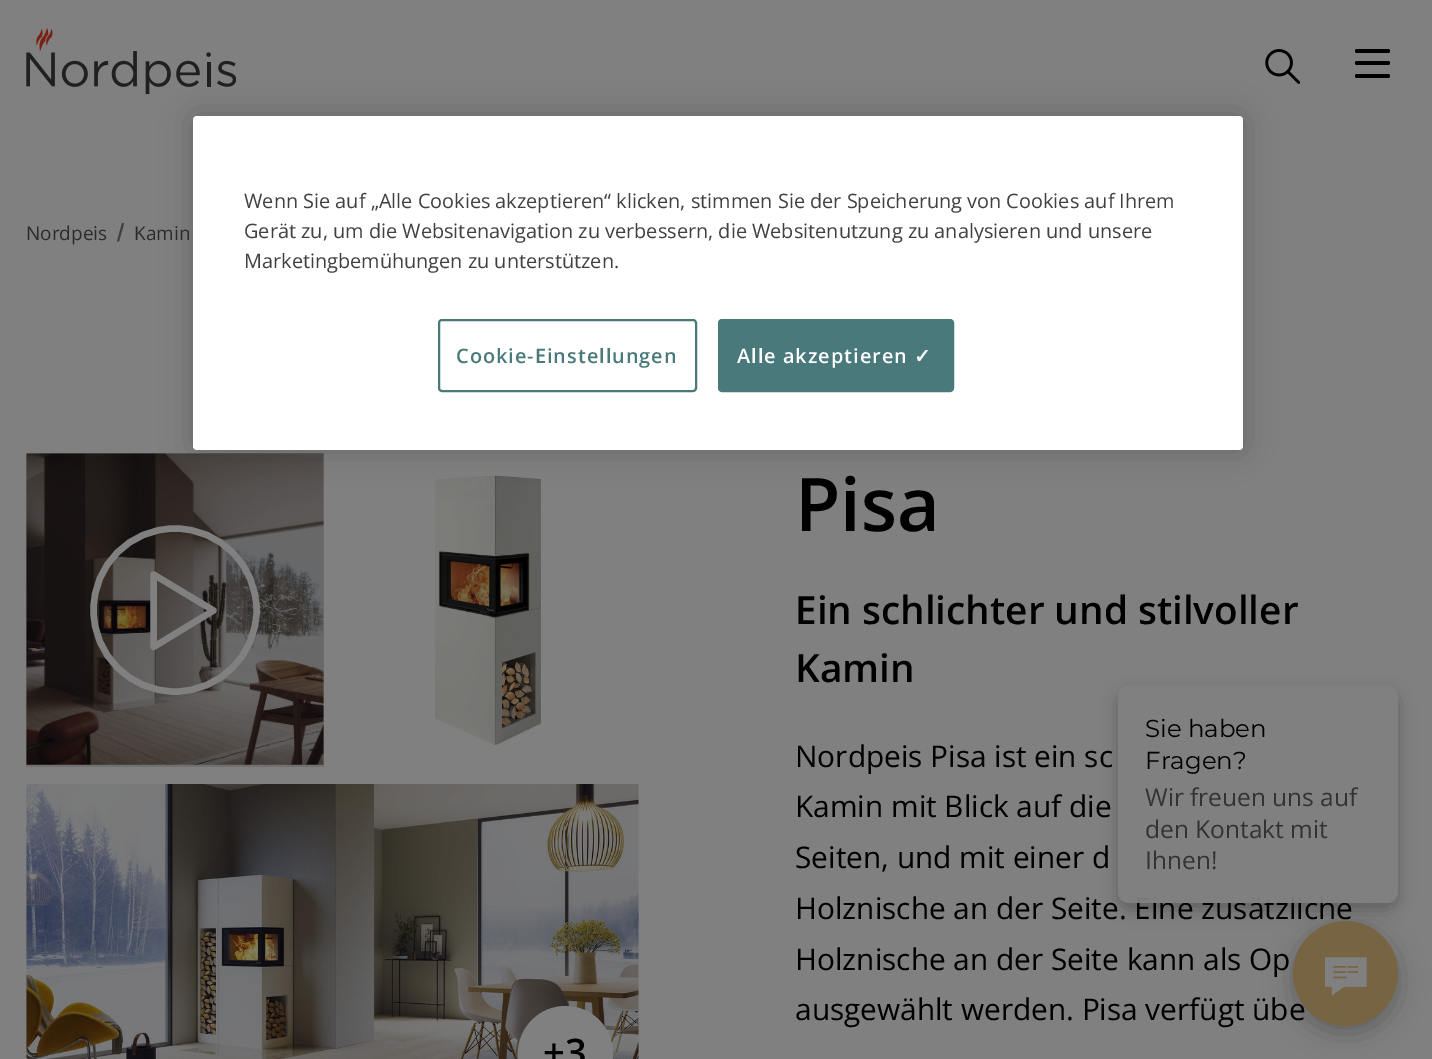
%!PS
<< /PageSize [1432 1059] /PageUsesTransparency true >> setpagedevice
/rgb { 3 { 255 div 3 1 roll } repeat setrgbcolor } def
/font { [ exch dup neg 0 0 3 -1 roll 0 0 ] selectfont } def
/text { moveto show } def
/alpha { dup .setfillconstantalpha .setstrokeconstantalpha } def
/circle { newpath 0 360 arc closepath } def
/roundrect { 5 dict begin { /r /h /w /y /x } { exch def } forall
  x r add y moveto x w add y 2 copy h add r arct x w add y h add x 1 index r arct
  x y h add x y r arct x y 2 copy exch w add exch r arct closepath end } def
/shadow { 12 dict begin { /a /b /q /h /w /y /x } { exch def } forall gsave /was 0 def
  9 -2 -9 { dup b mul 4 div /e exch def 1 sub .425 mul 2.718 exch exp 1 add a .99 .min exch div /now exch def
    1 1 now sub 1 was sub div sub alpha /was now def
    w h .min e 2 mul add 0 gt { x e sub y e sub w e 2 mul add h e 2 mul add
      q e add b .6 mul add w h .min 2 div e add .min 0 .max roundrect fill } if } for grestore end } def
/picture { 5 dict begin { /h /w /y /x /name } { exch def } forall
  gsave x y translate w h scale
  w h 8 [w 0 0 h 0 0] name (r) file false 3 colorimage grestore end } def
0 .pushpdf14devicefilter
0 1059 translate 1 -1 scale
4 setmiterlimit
128 128 128 rgb
0 0 1432 1059 rectfill
112 112 112 rgb
26 453 298 314 rectfill
(img_01.rgb) 26 28 210 67 picture
(img_02.rgb) 1265 49 35 35 picture
(img_03.rgb) 26 453 298 312 picture
(img_04.rgb) 435 475 106 271 picture
0 0 0 rgb
193 116 1050 334 4 16 0.2 shadow
255 255 255 rgb
193 116 1050 334 4 roundrect fill
74 121 123 rgb
2 setlinewidth
439 320 257 71 3 roundrect stroke
719 320 234 71 3 roundrect gsave fill grestore
stroke
0 0 0 rgb
1355 61 35 4 2 roundrect fill
1355 49 35 4 2 roundrect fill
1355 74 35 4 2 roundrect fill
64 64 64 rgb
122 223 moveto 2 0.5 rlineto -5 18 rlineto -2 0 rlineto closepath fill
128 128 128 rgb
6.4 setlinewidth
1 setlinejoin
175 691.5 moveto 45 0 81.5 -36.5 81.5 -81.5 rcurveto 0 -45 -36.5 -81.5 -81.5 -81.5 rcurveto -45 0 -81.5 36.5 -81.5 81.5 rcurveto 0 45 36.5 81.5 81.5 81.5 rcurveto closepath stroke
153.5 574.5 moveto 0 72.5 rlineto 60 -36.5 rlineto closepath stroke
(img_05.rgb) 26 784 613 275 picture
565.5 1053.5 47.5 circle fill
gsave
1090 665 moveto 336 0 rlineto 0 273 rlineto -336 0 rlineto closepath 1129 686 moveto 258 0 rlineto 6 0 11 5 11 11 rcurveto 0 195 rlineto 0 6 -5 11 -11 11 rcurveto -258 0 rlineto -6 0 -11 -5 -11 -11 rcurveto 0 -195 rlineto 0 -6 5 -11 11 -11 rcurveto closepath eoclip newpath
0 0 0 rgb
1118 693 280 217 11 9 0.25 shadow
grestore
/OpenSans-Regular 19.9 font
64 64 64 rgb
(Wenn Sie auf „Alle Cookies akzeptieren“ klicken, stimmen Sie der Speicherung von Cookies auf Ihrem) 244 208 text
(Gerät zu, um die Websitenavigation zu verbessern, die Websitenutzung zu analysieren und unsere) 244 238 text
(Marketingbemühungen zu unterstützen.) 244 268 text
/OpenSans-SemiBold 19.9 font
74 121 123 rgb
456 363 moveto 1 0 (Cookie-Einstellungen) ashow
255 255 255 rgb
737 363 moveto 1 0 (Alle akzeptieren) ashow
/DejaVuSans-Bold 19.9 font
914 363 moveto 1 0 (✓) ashow
/OpenSans-Regular 19 font
43 43 43 rgb
(Nordpeis) 26 240 text
(Kamin) 134 240 text
/OpenSans-SemiBold 74 font
0 0 0 rgb
(Pisa) 795 531 text
/OpenSans-SemiBold 38.7 font
(Ein schlichter und stilvoller) 795 624 text
(Kamin) 795 682 text
/OpenSans-Regular 29.8 font
(Nordpeis Pisa ist ein sc) 795 767 text
(Kamin mit Blick auf die) 795 817 text
(Seiten, und mit einer d) 795 868 text
(Holznische an der Seite. Eine zusätzliche) 795 919 text
(Holznische an der Seite kann als Op) 795 970 text
(ausgewählt werden. Pisa verfügt übe) 795 1020 text
/OpenSans-SemiBold 38 font
(+3) 543 1066 text
0.95 alpha
128 128 128 rgb
1118 686 280 217 11 roundrect fill
/Montserrat-Regular 24.5 font
1 alpha
0 0 0 rgb
(Sie haben) 1145 737 text
(Fragen?) 1145 769 text
/OpenSans-Regular 24.5 font
51 51 51 rgb
(Wir freuen uns auf) 1145 806 text
(den Kontakt mit) 1145 838 text
(Ihnen!) 1145 869 text
0 0 0 rgb
1293 928 105 105 52.5 14 0.25 shadow
118 100 66 rgb
1345.5 973.5 52.5 circle fill
(img_06.rgb) 1325 957 42 39 picture
0.8 alpha
128 128 128 rgb
1346 983 moveto 0 -20.5 rlineto 0.5 -0.5 rlineto 1.5 0 1 2.5 1 4.5 rcurveto 0 2 0.5 17 -0.5 17.5 rcurveto -0.5 0 -1 -0.5 -1 -1 rcurveto closepath fill
.poppdf14devicefilter showpage
